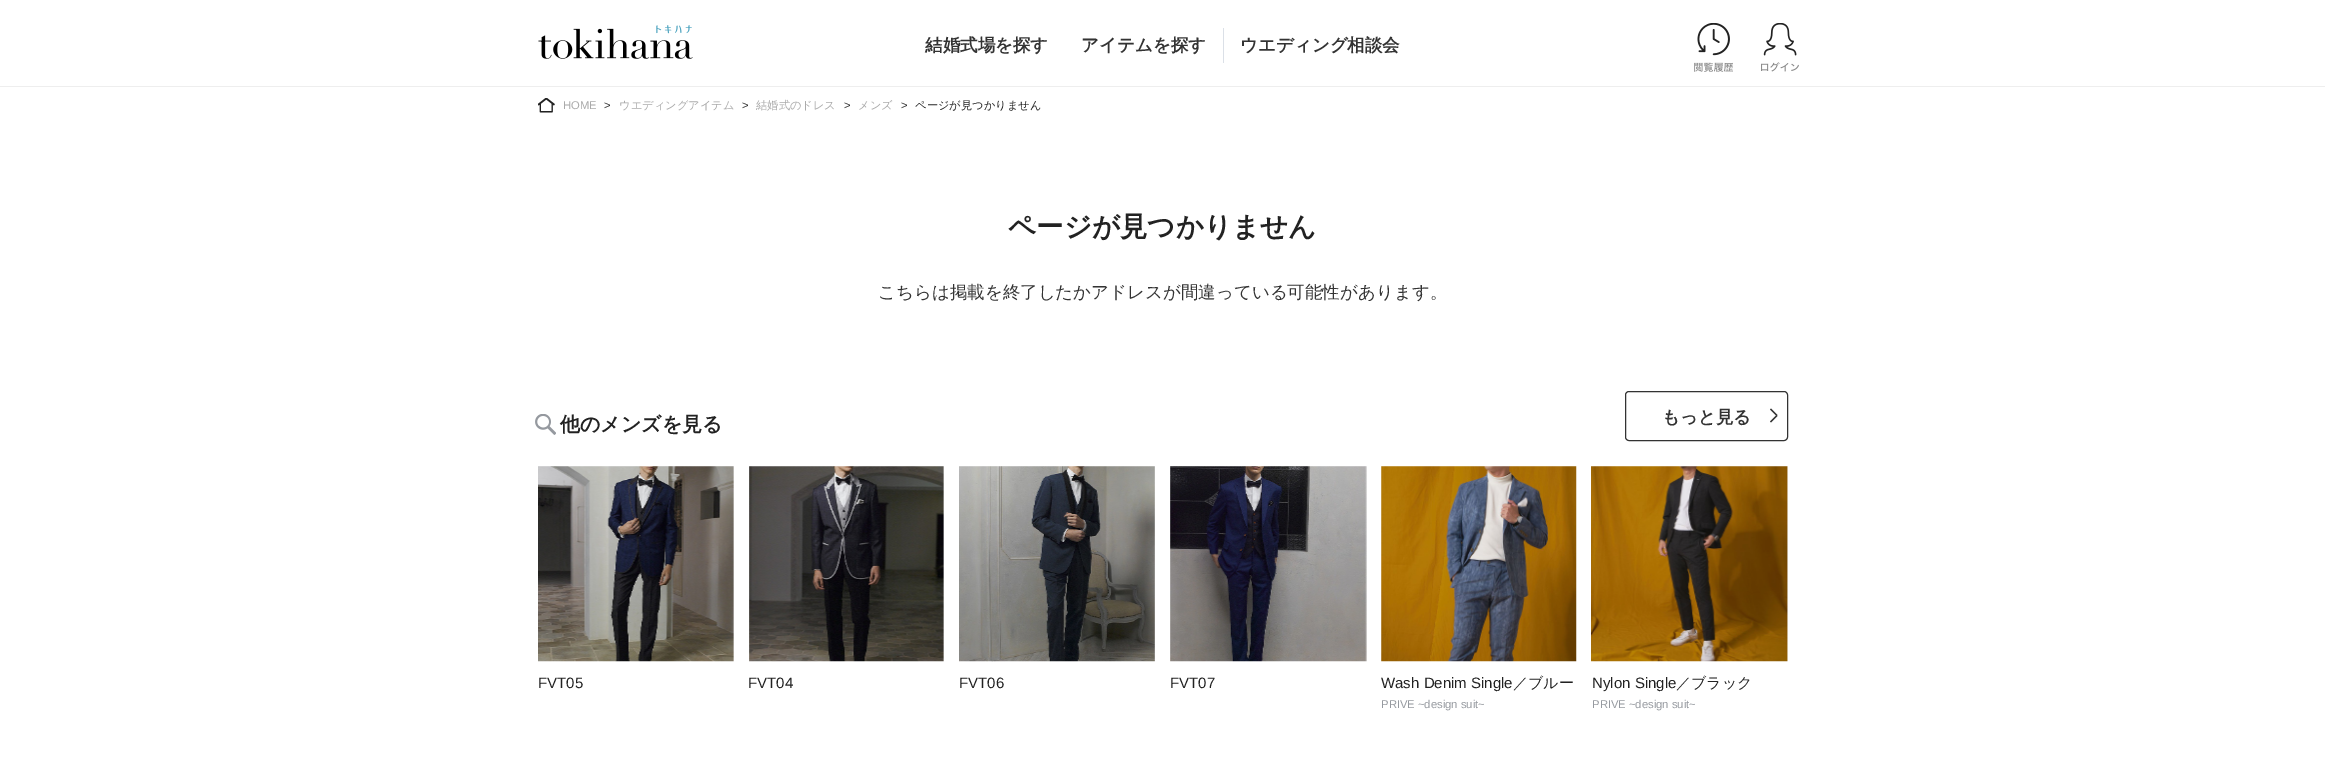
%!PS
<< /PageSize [2325 783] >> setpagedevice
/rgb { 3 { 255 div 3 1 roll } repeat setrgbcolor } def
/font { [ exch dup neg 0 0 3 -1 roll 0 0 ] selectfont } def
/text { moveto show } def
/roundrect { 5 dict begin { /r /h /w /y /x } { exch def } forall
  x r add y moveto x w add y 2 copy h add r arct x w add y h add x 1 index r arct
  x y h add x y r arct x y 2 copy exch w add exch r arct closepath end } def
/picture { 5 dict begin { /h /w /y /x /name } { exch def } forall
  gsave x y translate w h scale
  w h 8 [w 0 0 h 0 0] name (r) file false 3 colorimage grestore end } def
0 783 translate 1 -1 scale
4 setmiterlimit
255 255 255 rgb
0 0 2325 783 rectfill
238 238 238 rgb
0 86 2325 1 rectfill
(img_01.rgb) 538 25 155 34 picture
(img_02.rgb) 1694 23 39 49 picture
(img_03.rgb) 1761 23 38 49 picture
219 224 231 rgb
1223 28 1 35 rectfill
(img_04.rgb) 538 98 17 15 picture
(img_05.rgb) 535 414 21 21 picture
51 51 51 rgb
1625.5 391.5 162 49 3.5 roundrect stroke
1776.5 416 moveto -6.5 -6.5 rlineto 1 -1 rlineto 6.5 6.5 rlineto closepath fill
1771 422.5 moveto -1 -1 rlineto 6.5 -6.5 rlineto 1 1 rlineto closepath fill
247 247 248 rgb
538 466 196 195 rectfill
(img_06.rgb) 538 466 196 196 picture
749 466 195 195 rectfill
(img_07.rgb) 749 466 195 196 picture
959 466 196 195 rectfill
(img_08.rgb) 959 466 196 196 picture
1170 466 196 195 rectfill
(img_09.rgb) 1170 466 197 196 picture
1381 466 195 195 rectfill
(img_10.rgb) 1381 466 196 196 picture
1591 466 197 195 rectfill
(img_11.rgb) 1591 466 197 196 picture
/WenQuanYiZenHei-Bold 17.5 font
51 51 51 rgb
(結婚式場を探す) 925 51 text
(アイテムを探す) 1081 51 text
(ウエディング相談会) 1240 51 text
/LiberationSans-Regular 11.25 font
170 170 170 rgb
(HOME) 563 109 text
51 51 51 rgb
(>) 604 109 text
/WenQuanYiZenHei-Medium 11.25 font
170 170 170 rgb
(ウエディングアイテム) 619 109 text
/LiberationSans-Regular 11.25 font
51 51 51 rgb
(>) 742 109 text
/WenQuanYiZenHei-Medium 11.25 font
170 170 170 rgb
(結婚式のドレス) 756 109 text
/LiberationSans-Regular 11.25 font
51 51 51 rgb
(>) 844 109 text
/WenQuanYiZenHei-Medium 11.25 font
170 170 170 rgb
(メンズ) 858 109 text
/LiberationSans-Regular 11.25 font
51 51 51 rgb
(>) 901 109 text
/WenQuanYiZenHei-Medium 11.25 font
34 34 34 rgb
(ページが見つかりません) 915 109 text
/WenQuanYiZenHei-Bold 27.5 font
(ページが見つかりません) 1008 236 text
/WenQuanYiZenHei-Medium 17.5 font
51 51 51 rgb
(こちらは掲載を終了したかアドレスが間違っている可能性があります。) 878 298 text
/WenQuanYiZenHei-Bold 20 font
34 34 34 rgb
(他のメンズを見る) 560 431 text
/WenQuanYiZenHei-Bold 17.5 font
51 51 51 rgb
(もっと見る) 1662 423 text
/LiberationSans-Regular 15 font
34 34 34 rgb
(FVT05) 538 688 text
(FVT04) 748 688 text
(FVT06) 959 688 text
(FVT07) 1170 688 text
(Wash Denim Single) 1381 688 text
/WenQuanYiZenHei-Medium 15 font
(／ブルー) 1513 688 text
/LiberationSans-Regular 11.25 font
149 153 159 rgb
(PRIVE ~design suit~) 1381 708 text
/LiberationSans-Regular 15 font
34 34 34 rgb
(Nylon Single) 1592 688 text
/WenQuanYiZenHei-Medium 15 font
(／ブラック) 1676 688 text
/LiberationSans-Regular 11.25 font
149 153 159 rgb
(PRIVE ~design suit~) 1592 708 text
showpage
